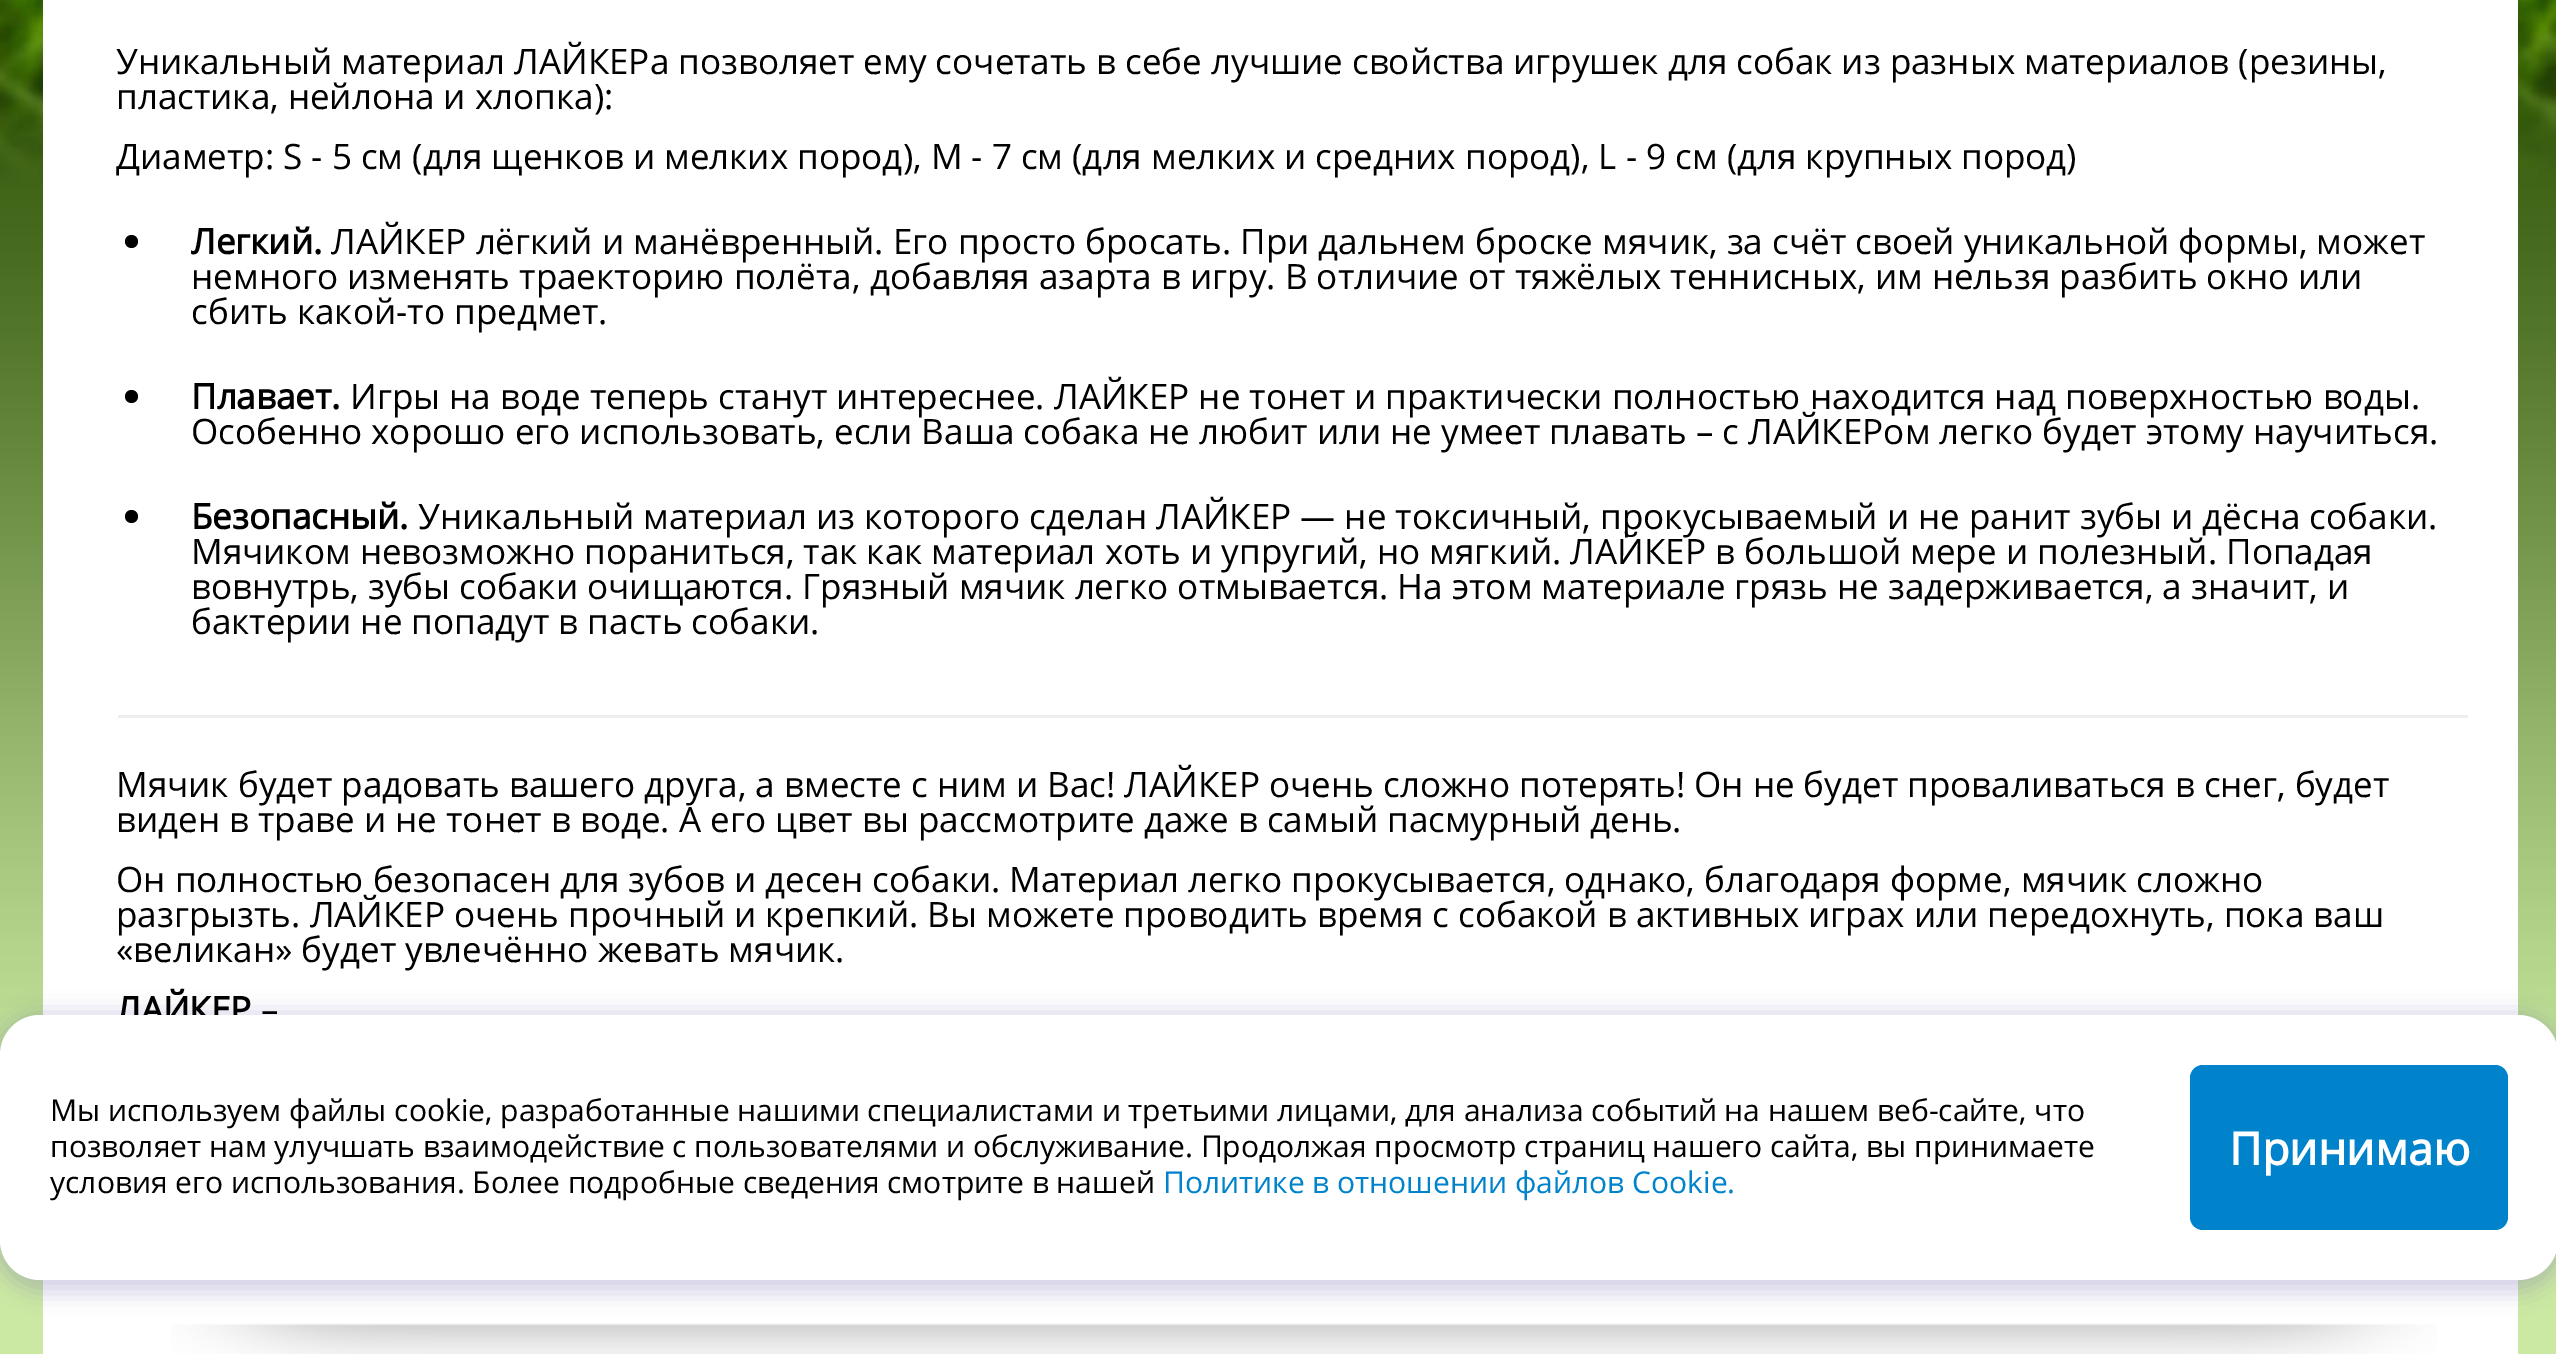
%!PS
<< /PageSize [2556 1354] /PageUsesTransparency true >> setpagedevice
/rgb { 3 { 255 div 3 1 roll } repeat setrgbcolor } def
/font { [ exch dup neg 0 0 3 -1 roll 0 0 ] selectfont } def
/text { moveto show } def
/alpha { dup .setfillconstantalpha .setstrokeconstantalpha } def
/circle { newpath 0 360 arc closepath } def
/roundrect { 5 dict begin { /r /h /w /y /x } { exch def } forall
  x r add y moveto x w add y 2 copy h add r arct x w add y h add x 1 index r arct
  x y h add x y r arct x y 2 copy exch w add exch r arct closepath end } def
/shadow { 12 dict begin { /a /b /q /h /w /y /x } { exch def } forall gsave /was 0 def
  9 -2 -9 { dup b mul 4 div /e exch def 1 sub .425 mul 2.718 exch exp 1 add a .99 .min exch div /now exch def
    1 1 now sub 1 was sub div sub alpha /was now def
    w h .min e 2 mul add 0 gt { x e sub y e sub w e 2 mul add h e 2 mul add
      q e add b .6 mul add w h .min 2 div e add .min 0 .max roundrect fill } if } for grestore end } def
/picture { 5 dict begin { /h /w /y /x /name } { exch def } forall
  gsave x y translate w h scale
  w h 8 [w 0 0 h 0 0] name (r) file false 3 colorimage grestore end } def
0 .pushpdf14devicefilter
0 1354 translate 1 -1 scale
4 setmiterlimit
203 233 162 rgb
0 0 2556 1354 rectfill
(img_01.rgb) 0 0 2556 1055 picture
255 255 255 rgb
43 0 2475 1354 rectfill
0 0 0 rgb
131.5 241.5 6.5 circle fill
131.5 396.5 6.5 circle fill
131.5 516.5 6.5 circle fill
238 238 238 rgb
118 715 2350 3 rectfill
(img_02.rgb) 171 1323 2266 31 picture
115 100 178 rgb
-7 1013 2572 280 48 11 0.3 shadow
/OpenSans-Regular 35 font
0 0 0 rgb
(Уникальный материал ЛАЙКЕРа позволяет ему сочетать в себе лучшие свойства игрушек для собак из разных материалов \(резины,) 116 74 text
(пластика, нейлона и хлопка\):) 116 109 text
(Диаметр: S - 5 см \(для щенков и мелких пород\), M - 7 см \(для мелких и средних пород\), L - 9 см \(для крупных пород\)) 116 169 text
/OpenSans-Bold 35 font
(Легкий.) 191 254 text
/OpenSans-Regular 35 font
(ЛАЙКЕР лёгкий и манёвренный. Его просто бросать. При дальнем броске мячик, за счёт своей уникальной формы, может) 331 254 text
(немного изменять траекторию полёта, добавляя азарта в игру. В отличие от тяжёлых теннисных, им нельзя разбить окно или) 191 289 text
(сбить какой-то предмет.) 191 324 text
/OpenSans-Bold 35 font
(Плавает.) 191 409 text
/OpenSans-Regular 35 font
(Игры на воде теперь станут интереснее. ЛАЙКЕР не тонет и практически полностью находится над поверхностью воды.) 350 409 text
(Особенно хорошо его использовать, если Ваша собака не любит или не умеет плавать – с ЛАЙКЕРом легко будет этому научиться.) 191 444 text
/OpenSans-Bold 35 font
(Безопасный.) 191 529 text
/OpenSans-Regular 35 font
(Уникальный материал из которого сделан ЛАЙКЕР — не токсичный, прокусываемый и не ранит зубы и дёсна собаки.) 418 529 text
(Мячиком невозможно пораниться, так как материал хоть и упругий, но мягкий. ЛАЙКЕР в большой мере и полезный. Попадая) 191 564 text
(вовнутрь, зубы собаки очищаются. Грязный мячик легко отмывается. На этом материале грязь не задерживается, а значит, и) 191 599 text
(бактерии не попадут в пасть собаки.) 191 634 text
(Мячик будет радовать вашего друга, а вместе с ним и Вас! ЛАЙКЕР очень сложно потерять! Он не будет проваливаться в снег, будет) 116 797 text
(виден в траве и не тонет в воде. А его цвет вы рассмотрите даже в самый пасмурный день.) 116 832 text
(Он полностью безопасен для зубов и десен собаки. Материал легко прокусывается, однако, благодаря форме, мячик сложно) 116 892 text
(разгрызть. ЛАЙКЕР очень прочный и крепкий. Вы можете проводить время с собакой в активных играх или передохнуть, пока ваш) 116 927 text
(«великан» будет увлечённо жевать мячик.) 116 962 text
/OpenSans-Bold 35 font
(ЛАЙКЕР) 116 1022 text
/OpenSans-Regular 35 font
(–) 261 1022 text
255 255 255 rgb
0 1015 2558 265 40 roundrect fill
/OpenSans-Regular 30 font
0 0 0 rgb
(Мы используем файлы cookie, разработанные нашими специалистами и третьими лицами, для анализа событий на нашем веб-сайте, что) 50 1121 text
(позволяет нам улучшать взаимодействие с пользователями и обслуживание. Продолжая просмотр страниц нашего сайта, вы принимаете) 50 1157 text
(условия его использования. Более подробные сведения смотрите в нашей) 50 1193 text
0 131 203 rgb
(Политике в отношении файлов Cookie.) 1163 1193 text
2190 1065 318 165 13 roundrect fill
/OpenSans-Bold 45 font
255 255 255 rgb
(Принимаю) 2229 1165 text
.poppdf14devicefilter showpage
